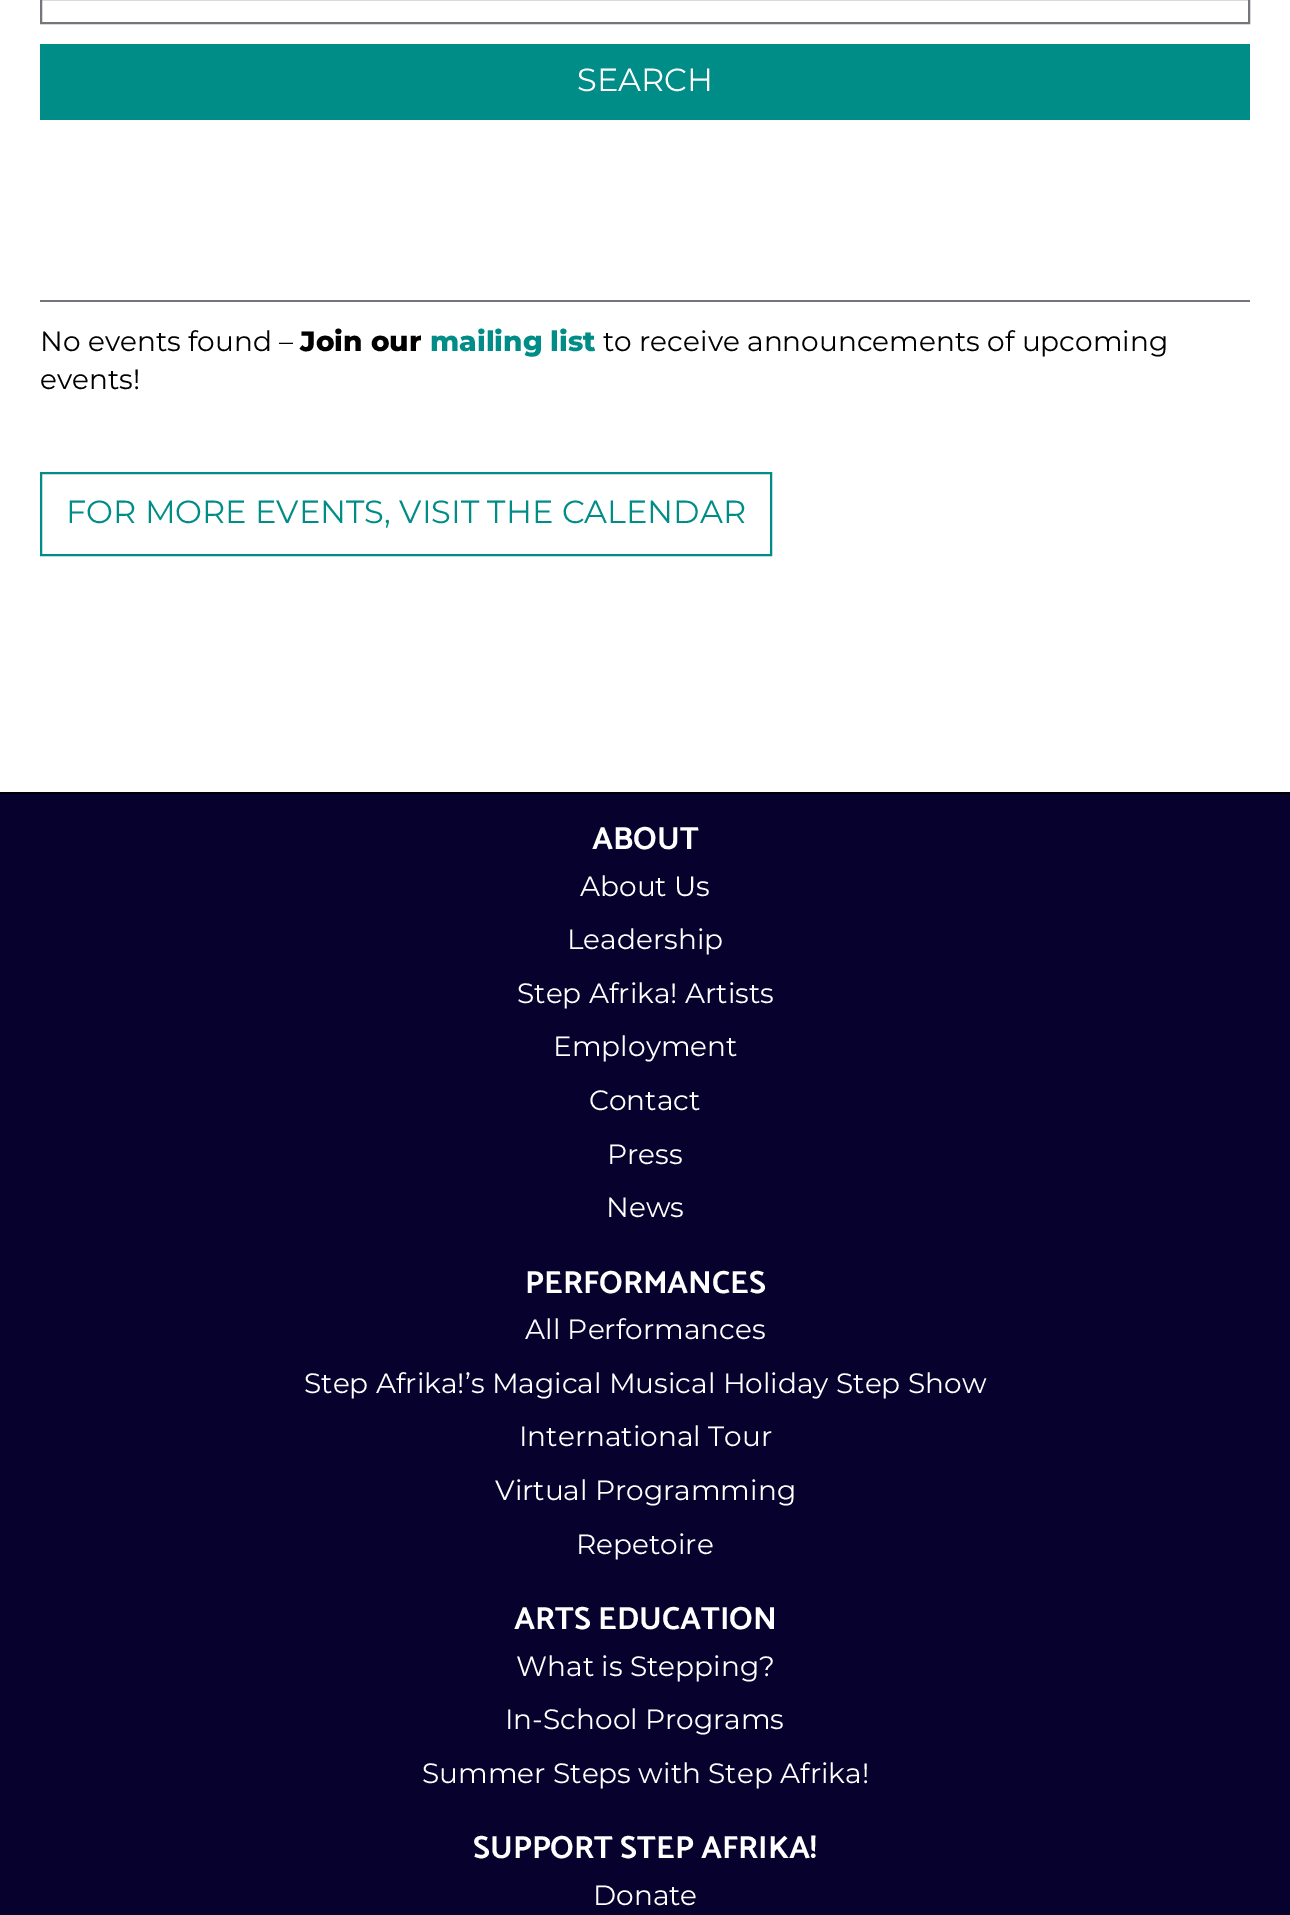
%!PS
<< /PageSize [1290 1915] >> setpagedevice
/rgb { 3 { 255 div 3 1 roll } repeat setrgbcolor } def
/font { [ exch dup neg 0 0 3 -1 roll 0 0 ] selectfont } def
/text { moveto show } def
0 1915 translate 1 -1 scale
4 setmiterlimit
255 255 255 rgb
0 0 1290 1915 rectfill
116 118 123 rgb
40 300 1210 2 rectfill
2 setlinewidth
41 -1 1208 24 rectstroke
1 141 135 rgb
40 44 1210 76 rectfill
41 473 730 82 rectstroke
7 1 46 rgb
0 794 1290 1121 rectfill
0 0 0 rgb
0 792 1290 2 rectfill
/Montserrat-Regular 32 font
255 255 255 rgb
(SEARCH) 577 91 text
/Montserrat-Regular 28 font
0 0 0 rgb
(No events found –) 40 351 text
/Montserrat-ExtraBold 28 font
(Join our) 300 351 text
1 141 135 rgb
(mailing list) 430 351 text
/Montserrat-Regular 28 font
0 0 0 rgb
(to receive announcements of upcoming) 603 351 text
(events!) 40 389 text
/Montserrat-Regular 32 font
1 141 135 rgb
(FOR MORE EVENTS, VISIT THE CALENDAR) 66 523 text
/Catamaran-Thin 32 font
255 255 255 rgb
(ABOUT) 592 849 text
/Montserrat-Regular 28 font
(About Us) 580 896 text
(Leadership) 567 949 text
(Step Afrika! Artists) 517 1003 text
(Employment) 553 1056 text
(Contact) 589 1110 text
(Press) 607 1164 text
(News) 606 1217 text
/Catamaran-Thin 32 font
(PERFORMANCES) 525 1293 text
/Montserrat-Regular 28 font
(All Performances) 525 1339 text
(Step Afrika!’s Magical Musical Holiday Step Show) 304 1393 text
(International Tour) 519 1446 text
(Virtual Programming) 495 1500 text
(Repetoire) 576 1554 text
/Catamaran-Thin 32 font
(ARTS EDUCATION) 514 1629 text
/Montserrat-Regular 28 font
(What is Stepping?) 516 1676 text
(In-School Programs) 505 1729 text
(Summer Steps with Step Afrika!) 422 1783 text
/Catamaran-Thin 32 font
(SUPPORT STEP AFRIKA!) 473 1858 text
/Montserrat-Regular 28 font
(Donate) 593 1905 text
showpage
